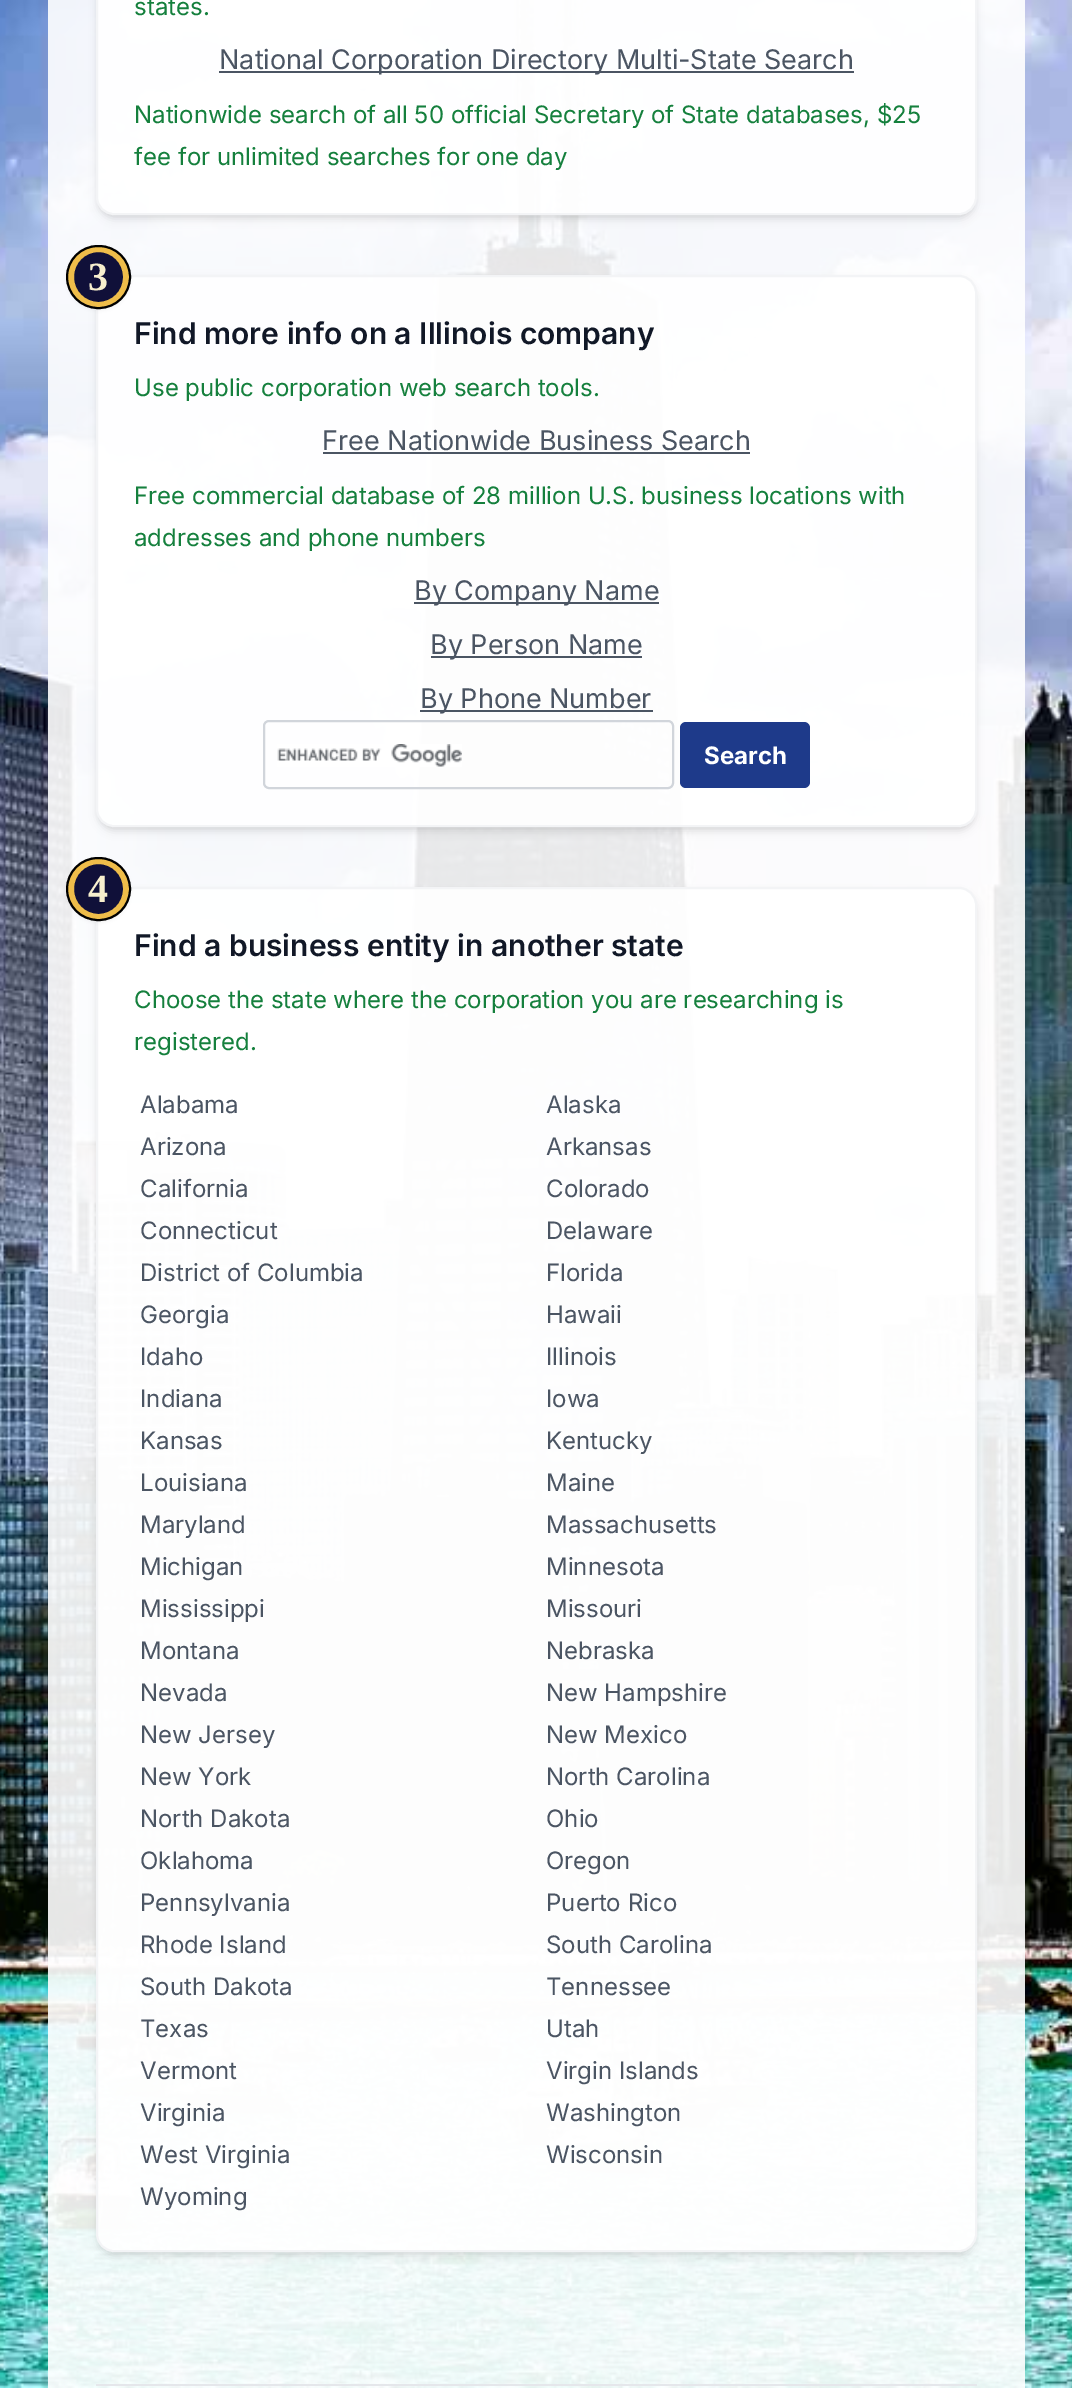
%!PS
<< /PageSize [1072 2388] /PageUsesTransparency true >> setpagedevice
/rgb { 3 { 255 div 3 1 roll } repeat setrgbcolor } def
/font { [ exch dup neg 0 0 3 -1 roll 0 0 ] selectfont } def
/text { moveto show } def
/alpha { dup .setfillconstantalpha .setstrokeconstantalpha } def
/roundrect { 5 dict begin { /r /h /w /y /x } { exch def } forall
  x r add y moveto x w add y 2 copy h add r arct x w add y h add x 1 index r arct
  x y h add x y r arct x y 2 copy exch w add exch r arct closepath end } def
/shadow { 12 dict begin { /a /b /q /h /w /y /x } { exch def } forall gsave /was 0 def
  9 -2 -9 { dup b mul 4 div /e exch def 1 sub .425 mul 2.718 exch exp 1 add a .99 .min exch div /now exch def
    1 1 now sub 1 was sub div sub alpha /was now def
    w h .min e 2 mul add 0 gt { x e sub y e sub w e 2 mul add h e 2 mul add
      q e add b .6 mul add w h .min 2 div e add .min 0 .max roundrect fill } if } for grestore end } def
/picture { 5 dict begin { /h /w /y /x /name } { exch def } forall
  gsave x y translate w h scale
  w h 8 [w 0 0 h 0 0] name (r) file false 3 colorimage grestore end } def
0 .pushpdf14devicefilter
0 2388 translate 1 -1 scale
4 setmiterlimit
255 255 255 rgb
0 0 1072 2388 rectfill
(img_01.rgb) 0 0 1072 2388 picture
0.9 alpha
48 0 977 2388 rectfill
gsave
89 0 moveto 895 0 rlineto 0 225 rlineto -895 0 rlineto closepath 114 -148 moveto 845 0 rlineto 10 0 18 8 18 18 rcurveto 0 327 rlineto 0 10 -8 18 -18 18 rcurveto -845 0 rlineto -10 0 -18 -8 -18 -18 rcurveto 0 -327 rlineto 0 -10 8 -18 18 -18 rcurveto closepath eoclip newpath
1 alpha
0 0 0 rgb
99 -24 875 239 15 3 0.1 shadow
grestore
gsave
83 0 moveto 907 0 rlineto 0 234 rlineto -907 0 rlineto closepath 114 -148 moveto 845 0 rlineto 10 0 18 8 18 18 rcurveto 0 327 rlineto 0 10 -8 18 -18 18 rcurveto -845 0 rlineto -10 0 -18 -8 -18 -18 rcurveto 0 -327 rlineto 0 -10 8 -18 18 -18 rcurveto closepath eoclip newpath
1 alpha
0 0 0 rgb
98 -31 877 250 17 4.5 0.1 shadow
grestore
97 -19 879 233 17 roundrect fill
1 alpha
243 244 246 rgb
2 setlinewidth
97 -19 879 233 17 roundrect stroke
75 85 99 rgb
219 71 635 2 rectfill
gsave
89 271 moveto 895 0 rlineto 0 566 rlineto -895 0 rlineto closepath 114 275 moveto 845 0 rlineto 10 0 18 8 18 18 rcurveto 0 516 rlineto 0 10 -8 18 -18 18 rcurveto -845 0 rlineto -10 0 -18 -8 -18 -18 rcurveto 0 -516 rlineto 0 -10 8 -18 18 -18 rcurveto closepath eoclip newpath
0 0 0 rgb
99 281 875 546 15 3 0.1 shadow
grestore
gsave
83 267 moveto 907 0 rlineto 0 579 rlineto -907 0 rlineto closepath 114 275 moveto 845 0 rlineto 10 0 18 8 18 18 rcurveto 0 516 rlineto 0 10 -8 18 -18 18 rcurveto -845 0 rlineto -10 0 -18 -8 -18 -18 rcurveto 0 -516 rlineto 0 -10 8 -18 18 -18 rcurveto closepath eoclip newpath
0 0 0 rgb
98 282 877 549 17 4.5 0.1 shadow
grestore
0.9 alpha
255 255 255 rgb
97 276 879 550 17 roundrect fill
1 alpha
243 244 246 rgb
97 276 879 550 17 roundrect stroke
0 0 0 rgb
68 248 61 61 30.5 2 0.08 shadow
16 16 57 rgb
71 249 55 56 27.5 roundrect gsave fill grestore
239 189 74 rgb
6 setlinewidth
stroke
0 0 0 rgb
2 setlinewidth
67 246 63 62 31 roundrect stroke
75 85 99 rgb
323 452 427 2 rectfill
414 602 245 2 rectfill
431 656 211 2 rectfill
420 710 233 2 rectfill
(img_02.rgb) 277 744 185 23 picture
209 213 219 rgb
264 721 409 67 5 roundrect stroke
30 58 138 rgb
680 722 130 66 6 roundrect fill
gsave
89 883 moveto 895 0 rlineto 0 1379 rlineto -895 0 rlineto closepath 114 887 moveto 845 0 rlineto 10 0 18 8 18 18 rcurveto 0 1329 rlineto 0 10 -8 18 -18 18 rcurveto -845 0 rlineto -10 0 -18 -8 -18 -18 rcurveto 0 -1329 rlineto 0 -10 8 -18 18 -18 rcurveto closepath eoclip newpath
0 0 0 rgb
99 893 875 1359 15 3 0.1 shadow
grestore
gsave
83 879 moveto 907 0 rlineto 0 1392 rlineto -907 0 rlineto closepath 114 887 moveto 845 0 rlineto 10 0 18 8 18 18 rcurveto 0 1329 rlineto 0 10 -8 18 -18 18 rcurveto -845 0 rlineto -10 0 -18 -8 -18 -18 rcurveto 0 -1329 rlineto 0 -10 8 -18 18 -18 rcurveto closepath eoclip newpath
0 0 0 rgb
98 894 877 1362 17 4.5 0.1 shadow
grestore
0.9 alpha
255 255 255 rgb
97 888 879 1363 17 roundrect fill
1 alpha
243 244 246 rgb
97 888 879 1363 17 roundrect stroke
0 0 0 rgb
68 860 61 61 30.5 2 0.08 shadow
16 16 57 rgb
71 861 55 56 27.5 roundrect gsave fill grestore
239 189 74 rgb
6 setlinewidth
stroke
0 0 0 rgb
2 setlinewidth
67 858 63 62 31 roundrect stroke
229 231 235 rgb
96 2384 881 2 rectfill
/Inter-Regular 24 font
21 128 61 rgb
(states.) 134 15 text
/Inter-Regular 27 font
75 85 99 rgb
(National Corporation Directory Multi-State Search) 219 69 text
/Inter-Regular 24 font
21 128 61 rgb
(Nationwide search of all 50 official Secretary of State databases, $25) 134 123 text
(fee for unlimited searches for one day) 134 165 text
/LiberationSerif-Bold 40 font
247 239 206 rgb
(3) 88 290 text
/Inter-SemiBold 30 font
17 24 39 rgb
(Find more info on a Illinois company) 134 344 text
/Inter-Regular 24 font
21 128 61 rgb
(Use public corporation web search tools.) 134 396 text
/Inter-Regular 27 font
75 85 99 rgb
(Free Nationwide Business Search) 322 450 text
/Inter-Regular 24 font
21 128 61 rgb
(Free commercial database of 28 million U.S. business locations with) 134 504 text
(addresses and phone numbers) 134 546 text
/Inter-Regular 27 font
75 85 99 rgb
(By Company Name) 414 600 text
(By Person Name) 430 654 text
(By Phone Number) 420 708 text
/Inter-Bold 24 font
255 255 255 rgb
(Search) 704 764 text
/LiberationSerif-Bold 40 font
247 239 206 rgb
(4) 88 902 text
/Inter-SemiBold 30 font
17 24 39 rgb
(Find a business entity in another state) 134 956 text
/Inter-Regular 24 font
21 128 61 rgb
(Choose the state where the corporation you are researching is) 134 1008 text
(registered.) 134 1050 text
75 85 99 rgb
(Alabama) 140 1113 text
(Alaska) 546 1113 text
(Arizona) 140 1155 text
(Arkansas) 546 1155 text
(California) 140 1197 text
(Colorado) 546 1197 text
(Connecticut) 140 1239 text
(Delaware) 546 1239 text
(District of Columbia) 140 1281 text
(Florida) 546 1281 text
(Georgia) 140 1323 text
(Hawaii) 546 1323 text
(Idaho) 140 1365 text
(Illinois) 546 1365 text
(Indiana) 140 1407 text
(Iowa) 546 1407 text
(Kansas) 140 1449 text
(Kentucky) 546 1449 text
(Louisiana) 140 1491 text
(Maine) 546 1491 text
(Maryland) 140 1533 text
(Massachusetts) 546 1533 text
(Michigan) 140 1575 text
(Minnesota) 546 1575 text
(Mississippi) 140 1617 text
(Missouri) 546 1617 text
(Montana) 140 1659 text
(Nebraska) 546 1659 text
(Nevada) 140 1701 text
(New Hampshire) 546 1701 text
(New Jersey) 140 1743 text
(New Mexico) 546 1743 text
(New York) 140 1785 text
(North Carolina) 546 1785 text
(North Dakota) 140 1827 text
(Ohio) 546 1827 text
(Oklahoma) 140 1869 text
(Oregon) 546 1869 text
(Pennsylvania) 140 1911 text
(Puerto Rico) 546 1911 text
(Rhode Island) 140 1953 text
(South Carolina) 546 1953 text
(South Dakota) 140 1995 text
(Tennessee) 546 1995 text
(Texas) 140 2037 text
(Utah) 546 2037 text
(Vermont) 140 2079 text
(Virgin Islands) 546 2079 text
(Virginia) 140 2121 text
(Washington) 546 2121 text
(West Virginia) 140 2163 text
(Wisconsin) 546 2163 text
(Wyoming) 140 2205 text
.poppdf14devicefilter showpage
